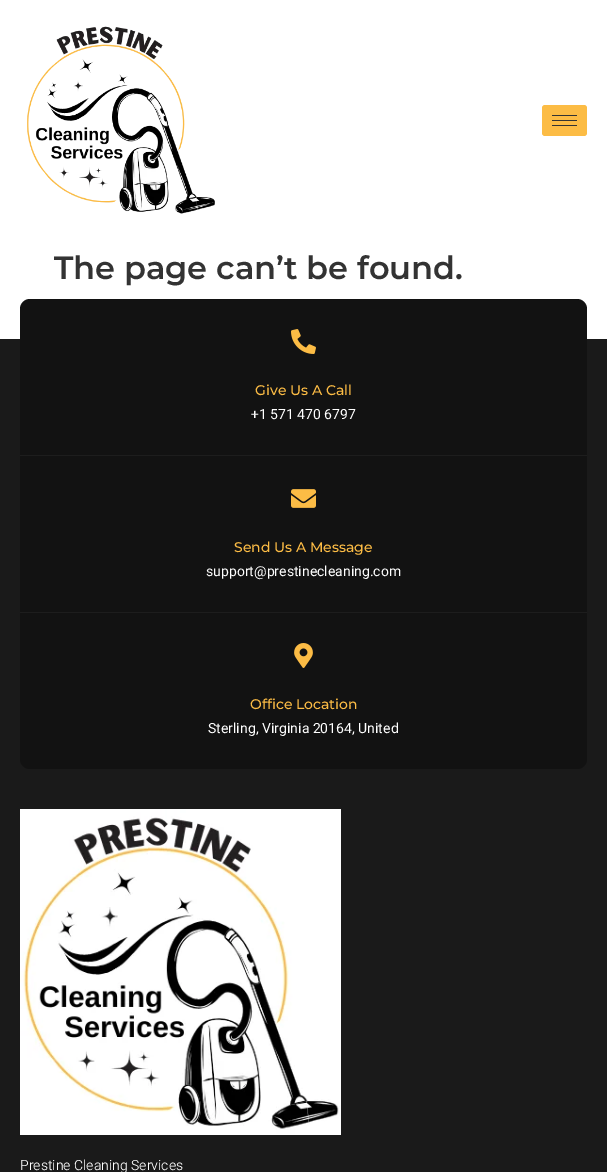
%!PS
<< /PageSize [607 1172] >> setpagedevice
/rgb { 3 { 255 div 3 1 roll } repeat setrgbcolor } def
/font { [ exch dup neg 0 0 3 -1 roll 0 0 ] selectfont } def
/text { moveto show } def
/roundrect { 5 dict begin { /r /h /w /y /x } { exch def } forall
  x r add y moveto x w add y 2 copy h add r arct x w add y h add x 1 index r arct
  x y h add x y r arct x y 2 copy exch w add exch r arct closepath end } def
/picture { 5 dict begin { /h /w /y /x /name } { exch def } forall
  gsave x y translate w h scale
  w h 8 [w 0 0 h 0 0] name (r) file false 3 colorimage grestore end } def
0 1172 translate 1 -1 scale
4 setmiterlimit
255 255 255 rgb
0 0 607 1172 rectfill
(img_01.rgb) 27 26 188 188 picture
252 188 69 rgb
542 105 45 31 3 roundrect fill
51 51 51 rgb
552 115 25 1 rectfill
552 120 25 1 rectfill
552 125 25 1 rectfill
26 26 26 rgb
0 339 607 833 rectfill
18 18 18 rgb
20 299 567 470 10 roundrect fill
(img_02.rgb) 291 329 25 25 picture
29 29 29 rgb
20 455 567 1 rectfill
20 612 567 1 rectfill
(img_03.rgb) 291 489 25 19 picture
(img_04.rgb) 294 643 19 25 picture
(img_05.rgb) 20 809 321 326 picture
/Montserrat-SemiBold 32 font
51 51 51 rgb
(The page can’t be found.) 54 279 text
/Montserrat-Medium 14 font
252 188 69 rgb
(Give Us A Call) 255 395 text
/Heebo-Regular 14 font
255 255 255 rgb
(+1 571 470 6797) 251 419 text
/Montserrat-Medium 14 font
252 188 69 rgb
(Send Us A Message) 234 552 text
/Heebo-Regular 14 font
255 255 255 rgb
(support@prestinecleaning.com) 206 576 text
/Montserrat-Medium 14 font
252 188 69 rgb
(Office Location) 250 709 text
/Heebo-Regular 14 font
255 255 255 rgb
(Sterling, Virginia 20164, United) 208 733 text
/Heebo-Light 14 font
(Prestine Cleaning Services) 20 1170 text
showpage
